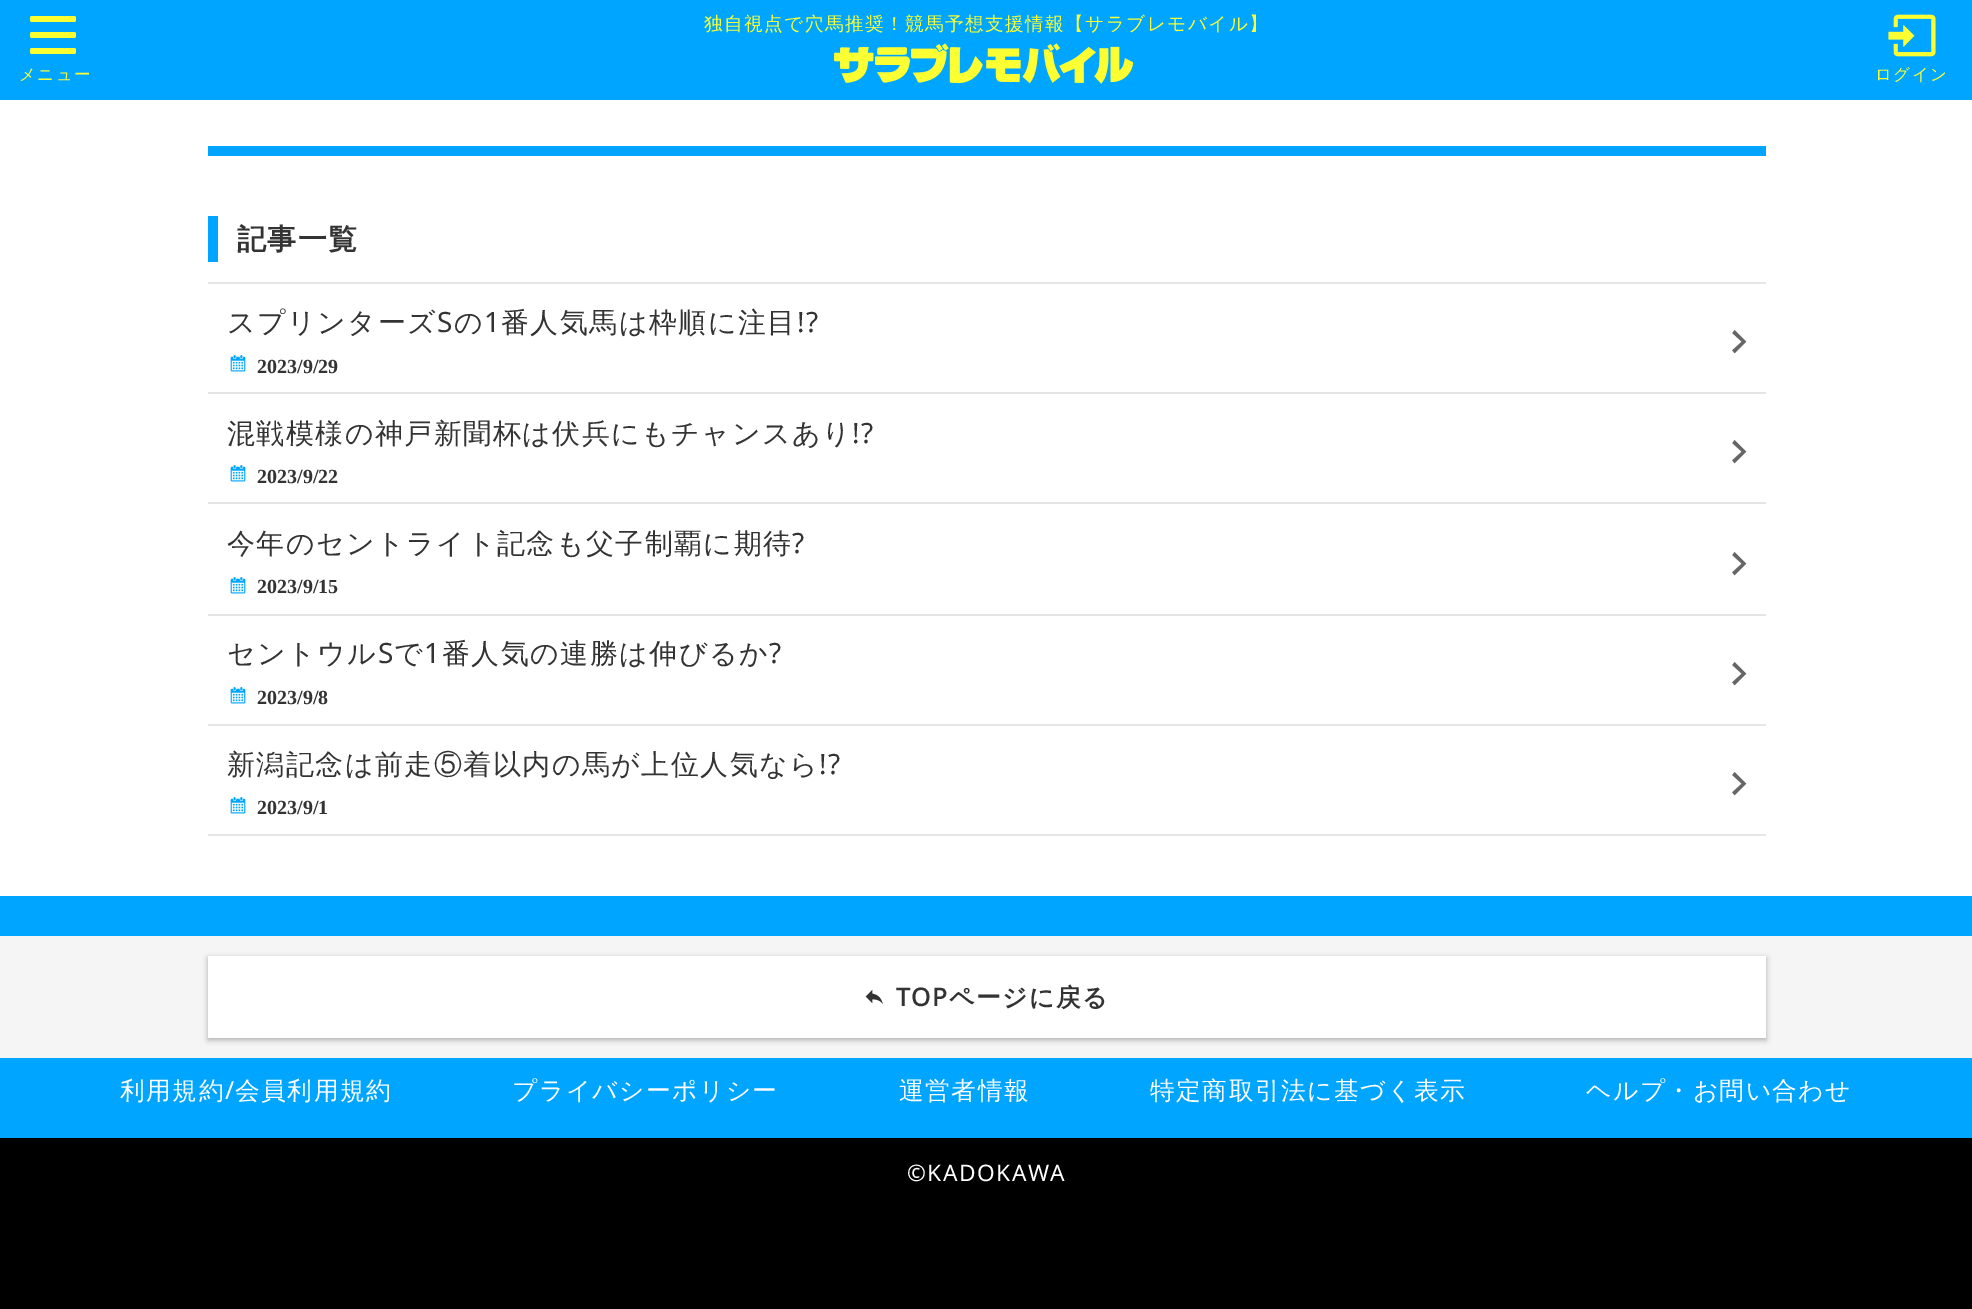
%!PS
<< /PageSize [1972 1309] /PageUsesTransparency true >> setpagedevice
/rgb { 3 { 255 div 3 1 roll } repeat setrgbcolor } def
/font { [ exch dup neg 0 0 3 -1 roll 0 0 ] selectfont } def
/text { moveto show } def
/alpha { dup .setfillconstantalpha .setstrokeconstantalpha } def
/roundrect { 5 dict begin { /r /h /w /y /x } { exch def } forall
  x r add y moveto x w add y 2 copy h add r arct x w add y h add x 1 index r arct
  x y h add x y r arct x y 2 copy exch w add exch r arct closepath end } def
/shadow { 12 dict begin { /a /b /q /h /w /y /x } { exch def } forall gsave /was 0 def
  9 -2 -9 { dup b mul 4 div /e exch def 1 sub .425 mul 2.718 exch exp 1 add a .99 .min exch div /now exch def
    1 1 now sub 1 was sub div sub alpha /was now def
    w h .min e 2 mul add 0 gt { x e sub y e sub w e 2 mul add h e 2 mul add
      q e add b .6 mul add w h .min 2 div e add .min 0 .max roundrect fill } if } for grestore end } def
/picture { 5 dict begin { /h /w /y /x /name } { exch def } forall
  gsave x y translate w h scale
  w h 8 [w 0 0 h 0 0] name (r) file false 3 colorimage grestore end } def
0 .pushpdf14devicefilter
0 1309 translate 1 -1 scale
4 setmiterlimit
0 0 0 rgb
0 0 1972 1309 rectfill
0 165 255 rgb
0 0 1972 100 rectfill
(img_01.rgb) 834 43 300 41 picture
252 255 50 rgb
30 32 46 6 2 roundrect fill
30 16 46 6 2 roundrect fill
30 48 46 6 2 roundrect fill
(img_02.rgb) 1888 14 48 43 picture
255 255 255 rgb
0 100 1972 796 rectfill
0 165 255 rgb
208 146 1558 10 rectfill
208 216 10 46 rectfill
229 229 229 rgb
208 282 1558 2 rectfill
208 392 1558 2 rectfill
(img_03.rgb) 1732 330 15 24 picture
(img_04.rgb) 230 355 16 17 picture
208 502 1558 2 rectfill
(img_03.rgb) 1732 440 15 24 picture
(img_04.rgb) 230 465 16 17 picture
208 614 1558 2 rectfill
(img_03.rgb) 1732 552 15 24 picture
(img_04.rgb) 230 577 16 17 picture
208 724 1558 2 rectfill
(img_03.rgb) 1732 662 15 24 picture
(img_04.rgb) 230 687 16 17 picture
208 834 1558 2 rectfill
(img_03.rgb) 1732 772 15 24 picture
(img_04.rgb) 230 797 16 17 picture
0 165 255 rgb
0 896 1972 40 rectfill
245 245 245 rgb
0 936 1972 122 rectfill
0 0 0 rgb
208 958 1558 82 0 3 0.3 shadow
255 255 255 rgb
208 956 1558 82 rectfill
(img_05.rgb) 865 989 18 15 picture
0 165 255 rgb
0 1058 1972 80 rectfill
/WenQuanYiZenHei-Medium 18.6 font
252 255 50 rgb
704 30 moveto 1.45 0 (独自視点で穴馬推奨！競馬予想支援情報【サラブレモバイル】) ashow
/WenQuanYiZenHei-Medium 16.5 font
19 80 moveto 1.45 0 (メニュー) ashow
1875 80 moveto 1.45 0 (ログイン) ashow
/WenQuanYiZenHei-Bold 29 font
51 51 51 rgb
237 249 moveto 1.45 0 (記事一覧) ashow
/WenQuanYiZenHei-Medium 28 font
227 332 moveto 1.45 0 (スプリンターズ) ashow
/NotoSans-Regular 28 font
437 332 moveto 1.45 0 (S) ashow
/WenQuanYiZenHei-Medium 28 font
454 332 moveto 1.45 0 (の) ashow
/NotoSans-Regular 28 font
484 332 moveto 1.45 0 (1) ashow
/WenQuanYiZenHei-Medium 28 font
501 332 moveto 1.45 0 (番人気馬は枠順に注目) ashow
/NotoSans-Regular 28 font
797 332 moveto 1.45 0 (!?) ashow
/LiberationSerif-Bold 20 font
(2023/9/29) 257 373 text
/WenQuanYiZenHei-Medium 28 font
227 443 moveto 1.45 0 (混戦模様の神戸新聞杯は伏兵にもチャンスあり) ashow
/NotoSans-Regular 28 font
852 443 moveto 1.45 0 (!?) ashow
/LiberationSerif-Bold 20 font
(2023/9/22) 257 483 text
/WenQuanYiZenHei-Medium 28 font
227 553 moveto 1.45 0 (今年のセントライト記念も父子制覇に期待) ashow
/NotoSans-Regular 28 font
792 553 moveto 1.45 0 (?) ashow
/LiberationSerif-Bold 20 font
(2023/9/15) 257 593 text
/WenQuanYiZenHei-Medium 28 font
227 663 moveto 1.45 0 (セントウル) ashow
/NotoSans-Regular 28 font
378 663 moveto 1.45 0 (S) ashow
/WenQuanYiZenHei-Medium 28 font
394 663 moveto 1.45 0 (で) ashow
/NotoSans-Regular 28 font
424 663 moveto 1.45 0 (1) ashow
/WenQuanYiZenHei-Medium 28 font
442 663 moveto 1.45 0 (番人気の連勝は伸びるか) ashow
/NotoSans-Regular 28 font
769 663 moveto 1.45 0 (?) ashow
/LiberationSerif-Bold 20 font
(2023/9/8) 257 704 text
/WenQuanYiZenHei-Medium 28 font
227 774 moveto 1.45 0 (新潟記念は前走⑤着以内の馬が上位人気なら) ashow
/NotoSans-Regular 28 font
819 774 moveto 1.45 0 (!?) ashow
/LiberationSerif-Bold 20 font
(2023/9/1) 257 814 text
/NotoSans-Bold 24.75 font
896 1006 moveto 1.45 0 (TOP) ashow
/WenQuanYiZenHei-Bold 24.75 font
949 1006 moveto 1.45 0 (ページに戻る) ashow
/WenQuanYiZenHei-Medium 24.75 font
255 255 255 rgb
120 1099 moveto 1.45 0 (利用規約) ashow
/NotoSans-Regular 24.75 font
225 1099 moveto 1.45 0 (/) ashow
/WenQuanYiZenHei-Medium 24.75 font
235 1099 moveto 1.45 0 (会員利用規約) ashow
512 1099 moveto 1.45 0 (プライバシーポリシー) ashow
899 1099 moveto 1.45 0 (運営者情報) ashow
1150 1099 moveto 1.45 0 (特定商取引法に基づく表示) ashow
1586 1099 moveto 1.45 0 (ヘルプ・お問い合わせ) ashow
/NotoSans-Regular 22.75 font
907 1181 moveto 1.45 0 (©KADOKAWA) ashow
.poppdf14devicefilter showpage
